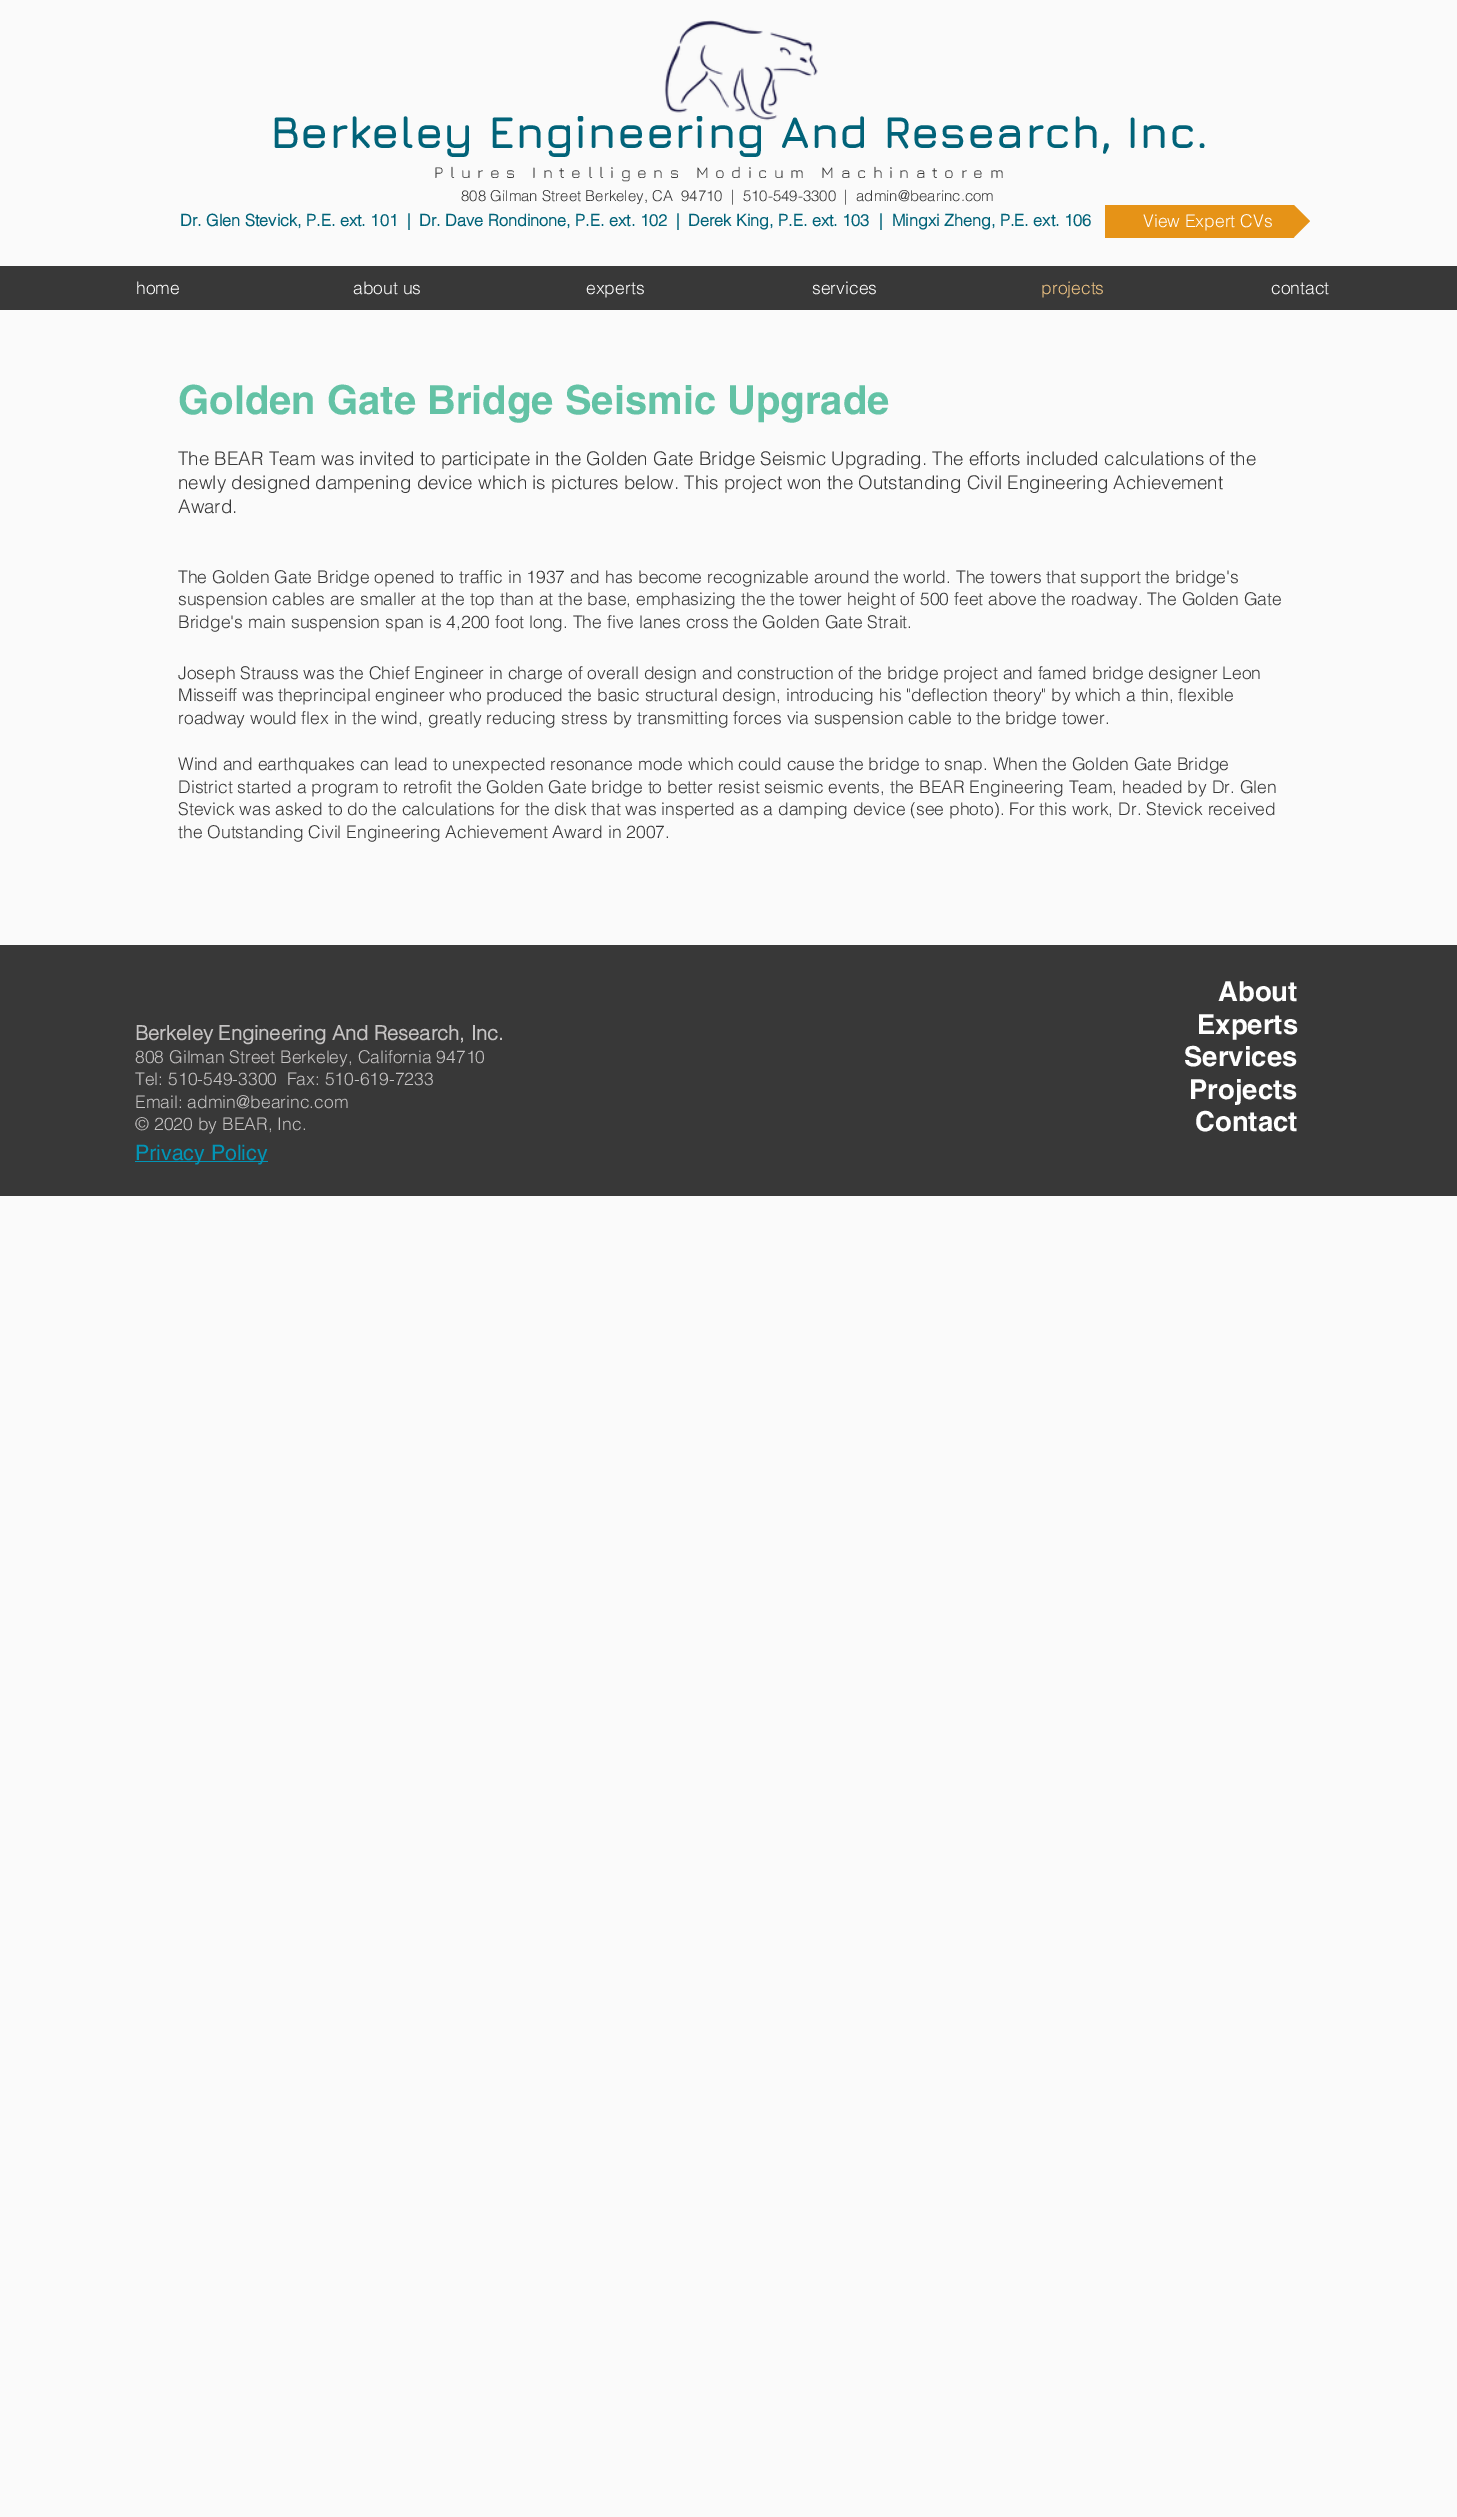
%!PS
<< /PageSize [1457 2517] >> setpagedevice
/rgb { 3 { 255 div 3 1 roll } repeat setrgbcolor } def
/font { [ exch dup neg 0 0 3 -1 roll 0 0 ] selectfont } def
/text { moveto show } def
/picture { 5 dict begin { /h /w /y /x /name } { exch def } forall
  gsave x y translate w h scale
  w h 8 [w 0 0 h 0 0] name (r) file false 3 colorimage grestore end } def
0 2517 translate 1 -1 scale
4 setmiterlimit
250 250 250 rgb
0 0 1457 2517 rectfill
(img_01.rgb) 664 20 154 101 picture
230 147 23 rgb
1105 205 143 33 rectfill
gsave
1105 205 205 33 rectclip
1310 221 moveto -62 0 rlineto 0 -62 rlineto closepath 1248 221 moveto 62 0 rlineto -62 63 rlineto closepath fill
grestore
56 56 56 rgb
0 266 1457 44 rectfill
0 945 1457 251 rectfill
2 148 181 rgb
135 1161 133 1 rectfill
/Jura-Bold 45 font
1 99 121 rgb
(Berkeley Engineering And Research, Inc.) 270 148 text
/Jura-Regular 16.25 font
56 56 56 rgb
434 178 moveto 6.5 0 (Plures Intelligens Modicum Machinatorem) ashow
/helvetica-Light 15 font
(808 Gilman Street Berkeley, CA  94710  |  510-549-3300  |) 461 201 text
(admin@bearinc.com) 856 201 text
/helvetica-Bold 16.25 font
1 99 121 rgb
(Dr. Glen Stevick, P.E. ext. 101  |  Dr. Dave Rondinone, P.E. ext. 102  |) 180 226 text
(Derek King, P.E. ext. 103) 688 226 text
(|  Mingxi Zheng, P.E. ext. 106) 879 226 text
/helvetica-Light 17.5 font
255 255 255 rgb
(View Expert CVs) 1143 227 text
(home) 136 294 text
(about us) 353 294 text
(experts) 586 294 text
(services) 812 294 text
238 195 131 rgb
(projects) 1041 294 text
255 255 255 rgb
(contact) 1271 294 text
/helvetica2-Bold 40 font
99 194 165 rgb
(Golden Gate Bridge Seismic Upgrade) 178 414 text
/helvetica-Light 18.75 font
56 56 56 rgb
(The BEAR Team was invited to participate in the Golden Gate Bridge Seismic Upgrading. The efforts included calculations of the) 178 465 text
(newly designed dampening device which is pictures below. This project won the Outstanding Civil Engineering Achievement) 178 489 text
(Award.) 178 513 text
/helvetica-Light 17.5 font
(The Golden Gate Bridge opened to traffic in 1937 and has become recognizable around the world. The towers that support the bridge's) 178 583 text
(suspension cables are smaller at the top than at the base, emphasizing the the tower height of 500 feet above the roadway. The Golden Gate) 178 605 text
(Bridge's main suspension span is 4,200 foot long. The five lanes cross the Golden Gate Strait.) 178 628 text
(Joseph Strauss was the Chief Engineer in charge of overall design and construction of the bridge project and famed bridge designer Leon) 178 679 text
(Misseiff was theprincipal engineer who produced the basic structural design, introducing his "deflection theory" by which a thin, flexible) 178 701 text
(roadway would flex in the wind, greatly reducing stress by transmitting forces via suspension cable to the bridge tower.) 178 724 text
(Wind and earthquakes can lead to unexpected resonance mode which could cause the bridge to snap. When the Golden Gate Bridge) 178 770 text
(District started a program to retrofit the Golden Gate bridge to better resist seismic events, the BEAR Engineering Team, headed by Dr. Glen) 178 793 text
(Stevick was asked to do the calculations for the disk that was insperted as a damping device \(see photo\). For this work, Dr. Stevick received) 178 815 text
(the Outstanding Civil Engineering Achievement Award in 2007.) 178 838 text
/helvetica-Bold 20 font
197 195 195 rgb
(Berkeley Engineering And Research, Inc.) 135 1040 text
/helvetica-Light 17.5 font
(808 Gilman Street Berkeley, California 94710) 135 1063 text
(Tel: 510-549-3300  Fax: 510-619-7233) 135 1085 text
(Email: admin@bearinc.com) 135 1108 text
(© 2020 by BEAR, Inc.) 135 1130 text
/helvetica2-Bold 27.5 font
255 255 255 rgb
(About) 1218 1001 text
(Experts) 1197 1034 text
(Services) 1184 1066 text
(Projects) 1189 1099 text
(Contact) 1195 1131 text
/helvetica-Regular 21.25 font
2 148 181 rgb
(Privacy Policy) 135 1160 text
showpage
